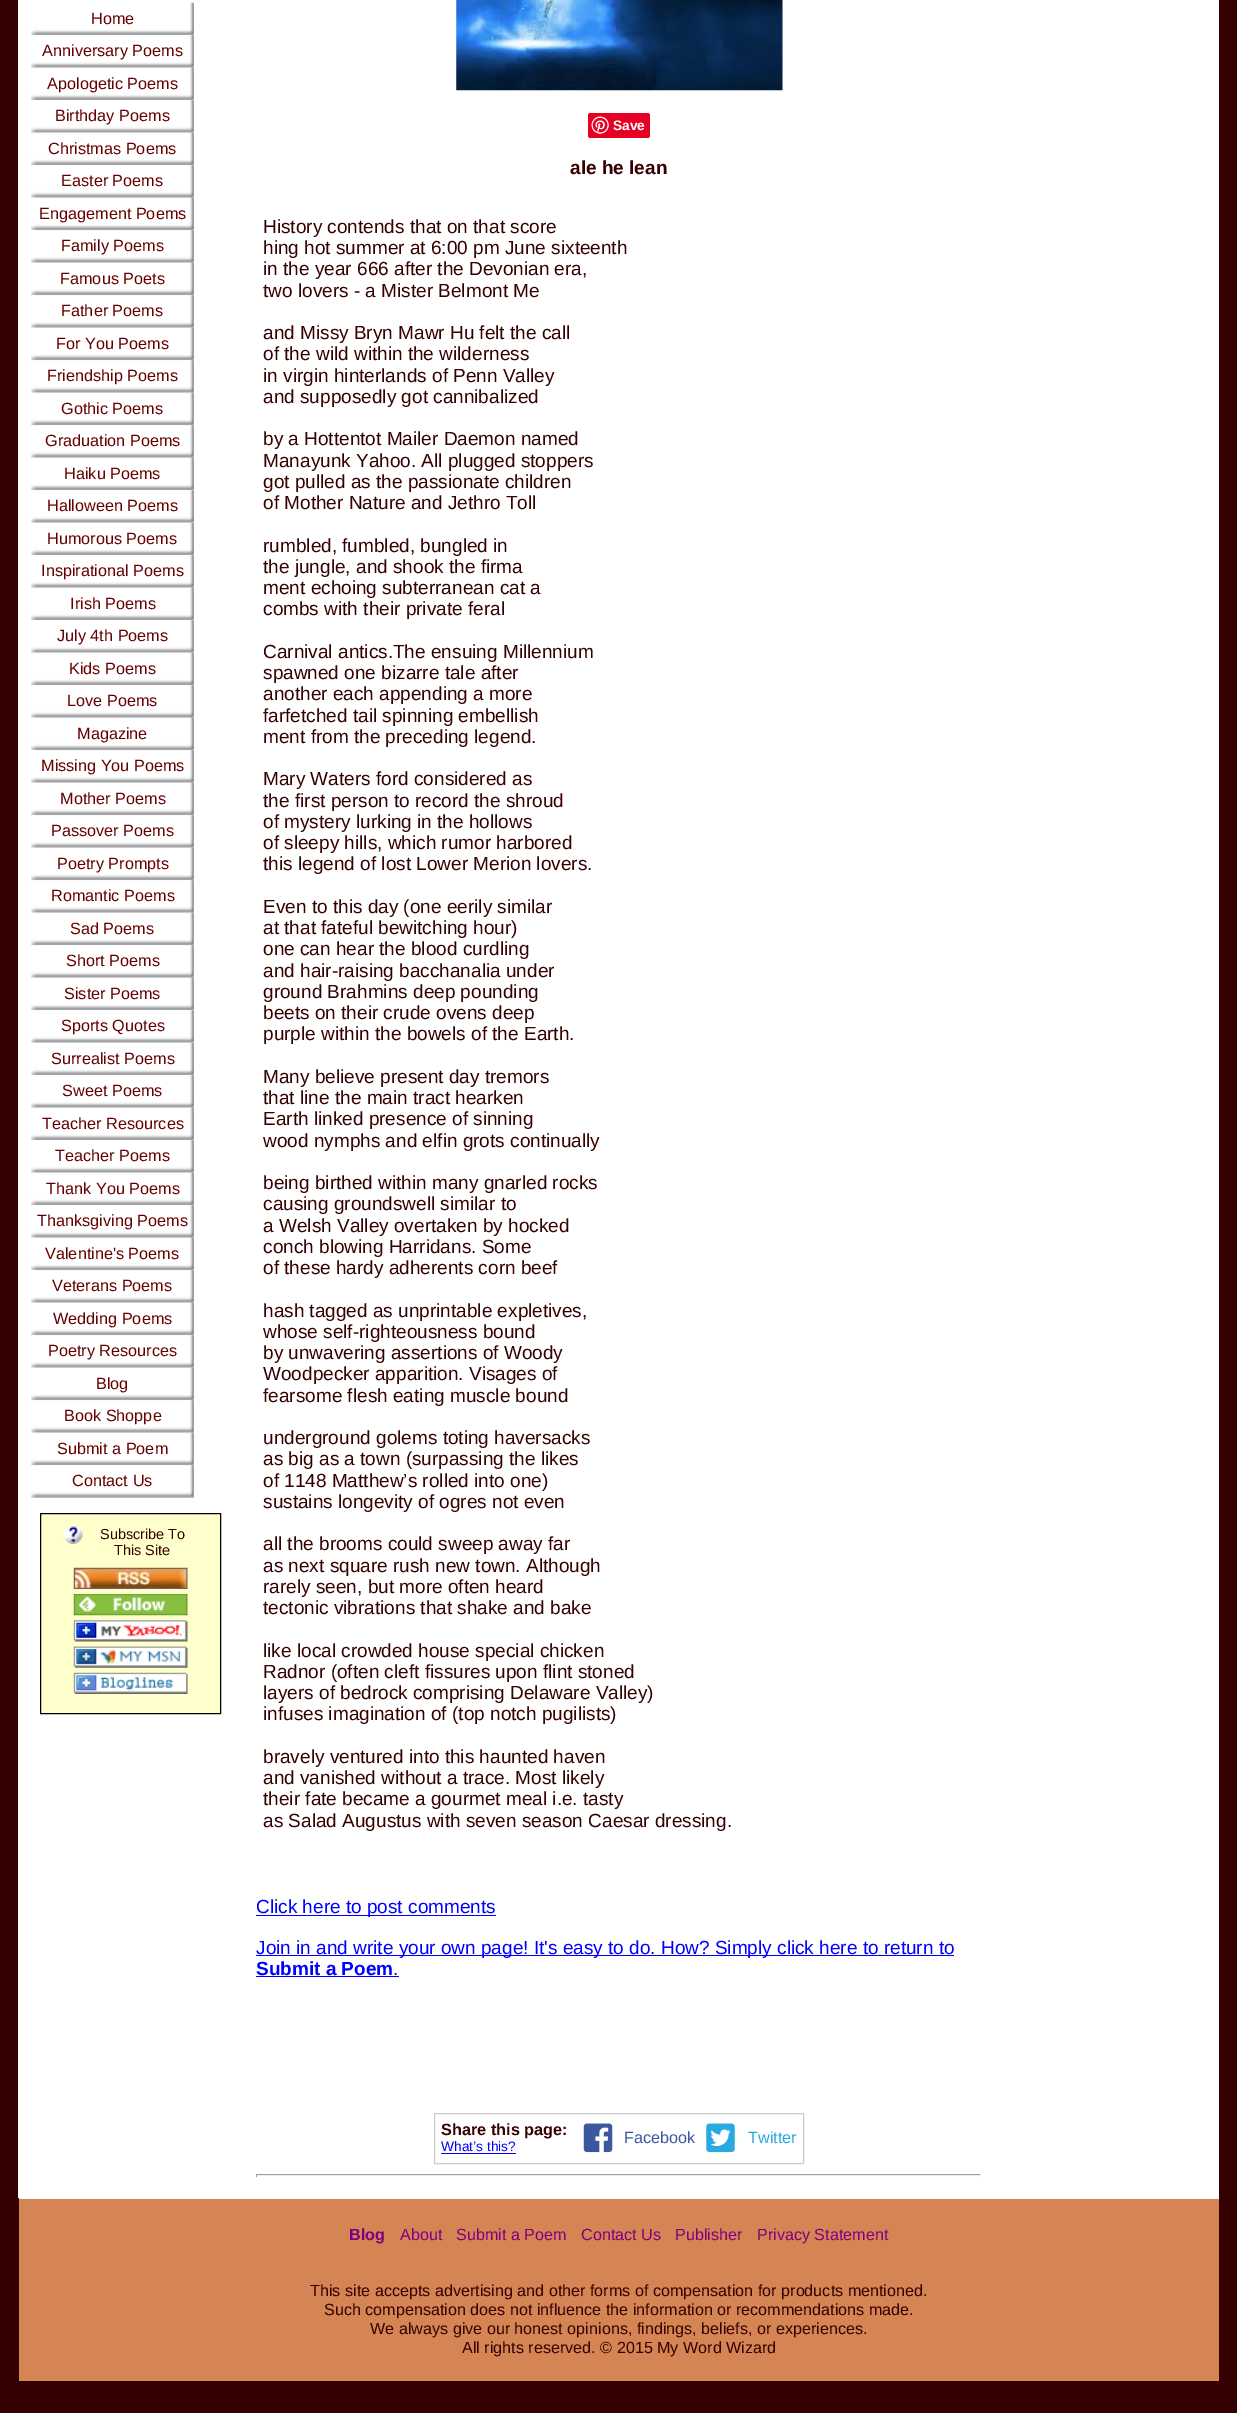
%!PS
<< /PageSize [1237 2413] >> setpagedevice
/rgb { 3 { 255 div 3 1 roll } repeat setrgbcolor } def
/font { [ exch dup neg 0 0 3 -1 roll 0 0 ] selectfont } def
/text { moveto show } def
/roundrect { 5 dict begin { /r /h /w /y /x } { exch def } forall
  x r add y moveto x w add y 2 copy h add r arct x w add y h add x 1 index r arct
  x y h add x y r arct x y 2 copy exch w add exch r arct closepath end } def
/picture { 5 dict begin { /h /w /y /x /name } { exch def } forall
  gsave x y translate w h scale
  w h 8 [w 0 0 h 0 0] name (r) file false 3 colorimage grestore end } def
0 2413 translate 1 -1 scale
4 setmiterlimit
52 0 0 rgb
0 0 1237 2413 rectfill
255 255 255 rgb
18 0 1201 2198 rectfill
(img_01.rgb) 31 2 163 34 picture
(img_02.rgb) 31 35 163 33 picture
(img_03.rgb) 31 67 163 34 picture
(img_02.rgb) 31 100 163 33 picture
(img_03.rgb) 31 132 163 34 picture
(img_02.rgb) 31 165 163 33 picture
(img_03.rgb) 31 197 163 34 picture
(img_02.rgb) 31 230 163 33 picture
(img_03.rgb) 31 262 163 34 picture
(img_02.rgb) 31 295 163 33 picture
(img_03.rgb) 31 327 163 34 picture
(img_02.rgb) 31 360 163 33 picture
(img_03.rgb) 31 392 163 34 picture
(img_02.rgb) 31 425 163 33 picture
(img_04.rgb) 31 457 163 34 picture
(img_02.rgb) 31 490 163 33 picture
(img_03.rgb) 31 522 163 34 picture
(img_02.rgb) 31 555 163 33 picture
(img_03.rgb) 31 587 163 34 picture
(img_02.rgb) 31 620 163 33 picture
(img_03.rgb) 31 652 163 34 picture
(img_02.rgb) 31 685 163 33 picture
(img_03.rgb) 31 717 163 34 picture
(img_02.rgb) 31 750 163 33 picture
(img_03.rgb) 31 782 163 34 picture
(img_02.rgb) 31 815 163 33 picture
(img_03.rgb) 31 847 163 34 picture
(img_02.rgb) 31 880 163 33 picture
(img_03.rgb) 31 912 163 34 picture
(img_02.rgb) 31 945 163 33 picture
(img_03.rgb) 31 977 163 34 picture
(img_02.rgb) 31 1010 163 33 picture
(img_03.rgb) 31 1042 163 34 picture
(img_02.rgb) 31 1075 163 33 picture
(img_03.rgb) 31 1107 163 34 picture
(img_05.rgb) 31 1140 163 33 picture
(img_03.rgb) 31 1172 163 34 picture
(img_02.rgb) 31 1205 163 33 picture
(img_03.rgb) 31 1237 163 34 picture
(img_02.rgb) 31 1270 163 33 picture
(img_03.rgb) 31 1302 163 34 picture
(img_02.rgb) 31 1335 163 33 picture
(img_03.rgb) 31 1367 163 34 picture
(img_02.rgb) 31 1400 163 33 picture
(img_03.rgb) 31 1432 163 34 picture
(img_02.rgb) 31 1465 163 33 picture
255 255 204 rgb
40.5 1513.5 moveto 180 0 rlineto 0 200 rlineto -180 0 rlineto closepath gsave fill grestore
0 0 0 rgb
stroke
(img_06.rgb) 63 1525 20 19 picture
(img_07.rgb) 73 1567 115 22 picture
(img_08.rgb) 73 1594 115 22 picture
(img_09.rgb) 73 1620 115 22 picture
(img_10.rgb) 73 1646 115 22 picture
(img_11.rgb) 73 1672 115 22 picture
(img_12.rgb) 456 0 327 91 picture
230 0 35 rgb
588 113 62 25 2.5 roundrect fill
(img_13.rgb) 591 116 18 18 picture
0 0 255 rgb
256 1915 240 1 rectfill
256 1955 698 1 rectfill
256 1976 143 1 rectfill
204 204 204 rgb
434.5 2113.5 369 50 rectstroke
0 0 255 rgb
441 2153 75 1 rectfill
(img_14.rgb) 583 2123 30 30 picture
(img_15.rgb) 706 2123 29 30 picture
159 159 159 rgb
256 2174 725 1 rectfill
238 238 238 rgb
980 2174 1 3 rectfill
256 2175 725 1 rectfill
159 159 159 rgb
256 2174 1 3 rectfill
213 133 83 rgb
19 2199 1200 182 rectfill
255 255 255 rgb
19 2198 1200 1 rectfill
/LiberationSans-Regular 16.25 font
102 0 0 rgb
(Home) 91 24 text
(Anniversary Poems) 42 56 text
(Apologetic Poems) 47 89 text
(Birthday Poems) 55 121 text
(Christmas Poems) 48 154 text
(Easter Poems) 61 186 text
(Engagement Poems) 39 219 text
(Family Poems) 61 251 text
(Famous Poets) 60 284 text
(Father Poems) 61 316 text
(For You Poems) 56 349 text
(Friendship Poems) 47 381 text
(Gothic Poems) 61 414 text
(Graduation Poems) 45 446 text
(Haiku Poems) 64 479 text
(Halloween Poems) 47 511 text
(Humorous Poems) 47 544 text
(Inspirational Poems) 41 576 text
(Irish Poems) 70 609 text
(July 4th Poems) 57 641 text
(Kids Poems) 69 674 text
(Love Poems) 67 706 text
(Magazine) 77 739 text
(Missing You Poems) 41 771 text
(Mother Poems) 60 804 text
(Passover Poems) 51 836 text
(Poetry Prompts) 57 869 text
(Romantic Poems) 51 901 text
(Sad Poems) 70 934 text
(Short Poems) 66 966 text
(Sister Poems) 64 999 text
(Sports Quotes) 61 1031 text
(Surrealist Poems) 51 1064 text
(Sweet Poems) 62 1096 text
(Teacher Resources) 42 1129 text
(Teacher Poems) 55 1161 text
(Thank You Poems) 46 1194 text
(Thanksgiving Poems) 37 1226 text
(Valentine's Poems) 45 1259 text
(Veterans Poems) 52 1291 text
(Wedding Poems) 53 1324 text
(Poetry Resources) 48 1356 text
(Blog) 96 1389 text
(Book Shoppe) 64 1421 text
(Submit a Poem) 57 1454 text
(Contact Us) 72 1486 text
/LiberationSans-Regular 14.5 font
52 0 0 rgb
(Subscribe To) 100 1539 text
(This Site) 114 1555 text
/LiberationSans-Bold 13.75 font
255 255 255 rgb
(Save) 613 130 text
/LiberationSans-Bold 19 font
52 0 0 rgb
(ale he lean) 570 174 text
/LiberationSans-Regular 19 font
(History contends that on that score) 263 233 text
(hing hot summer at 6:00 pm June sixteenth) 263 254 text
(in the year 666 after the Devonian era,) 263 275 text
(two lovers - a Mister Belmont Me) 263 297 text
(and Missy Bryn Mawr Hu felt the call) 263 339 text
(of the wild within the wilderness) 263 360 text
(in virgin hinterlands of Penn Valley) 263 382 text
(and supposedly got cannibalized) 263 403 text
(by a Hottentot Mailer Daemon named) 263 445 text
(Manayunk Yahoo. All plugged stoppers) 263 467 text
(got pulled as the passionate children) 263 488 text
(of Mother Nature and Jethro Toll) 263 509 text
(rumbled, fumbled, bungled in) 263 552 text
(the jungle, and shook the firma) 263 573 text
(ment echoing subterranean cat a) 263 594 text
(combs with their private feral) 263 615 text
(Carnival antics.The ensuing Millennium) 263 658 text
(spawned one bizarre tale after) 263 679 text
(another each appending a more) 263 700 text
(farfetched tail spinning embellish) 263 722 text
(ment from the preceding legend.) 263 743 text
(Mary Waters ford considered as) 263 785 text
(the first person to record the shroud) 263 807 text
(of mystery lurking in the hollows) 263 828 text
(of sleepy hills, which rumor harbored) 263 849 text
(this legend of lost Lower Merion lovers.) 263 870 text
(Even to this day \(one eerily similar) 263 913 text
(at that fateful bewitching hour\)) 263 934 text
(one can hear the blood curdling) 263 955 text
(and hair-raising bacchanalia under) 263 977 text
(ground Brahmins deep pounding) 263 998 text
(beets on their crude ovens deep) 263 1019 text
(purple within the bowels of the Earth.) 263 1040 text
(Many believe present day tremors) 263 1083 text
(that line the main tract hearken) 263 1104 text
(Earth linked presence of sinning) 263 1125 text
(wood nymphs and elfin grots continually) 263 1147 text
(being birthed within many gnarled rocks) 263 1189 text
(causing groundswell similar to) 263 1210 text
(a Welsh Valley overtaken by hocked) 263 1232 text
(conch blowing Harridans. Some) 263 1253 text
(of these hardy adherents corn beef) 263 1274 text
(hash tagged as unprintable expletives,) 263 1317 text
(whose self-righteousness bound) 263 1338 text
(by unwavering assertions of Woody) 263 1359 text
(Woodpecker apparition. Visages of) 263 1380 text
(fearsome flesh eating muscle bound) 263 1402 text
(underground golems toting haversacks) 263 1444 text
(as big as a town \(surpassing the likes) 263 1465 text
(of 1148 Matthew’s rolled into one\)) 263 1487 text
(sustains longevity of ogres not even) 263 1508 text
(all the brooms could sweep away far) 263 1550 text
(as next square rush new town. Although) 263 1572 text
(rarely seen, but more often heard) 263 1593 text
(tectonic vibrations that shake and bake) 263 1614 text
(like local crowded house special chicken) 263 1657 text
(Radnor \(often cleft fissures upon flint stoned) 263 1678 text
(layers of bedrock comprising Delaware Valley\)) 263 1699 text
(infuses imagination of \(top notch pugilists\)) 263 1720 text
(bravely ventured into this haunted haven) 263 1763 text
(and vanished without a trace. Most likely) 263 1784 text
(their fate became a gourmet meal i.e. tasty) 263 1805 text
(as Salad Augustus with seven season Caesar dressing.) 263 1827 text
0 0 255 rgb
(Click here to post comments) 256 1913 text
(Join in and write your own page! It's easy to do. How? Simply click here to return to) 256 1954 text
/LiberationSans-Bold 19 font
(Submit a Poem) 256 1975 text
/LiberationSans-Regular 19 font
(.) 393 1975 text
/LiberationSans-Bold 16.25 font
52 0 0 rgb
(Share this page:) 441 2135 text
/LiberationSans-Regular 13.75 font
0 0 255 rgb
(What’s this?) 441 2151 text
/LiberationSans-Regular 16.25 font
59 87 157 rgb
(Facebook) 624 2143 text
40 169 224 rgb
(Twitter) 748 2143 text
/LiberationSans-Bold 16.15 font
128 0 128 rgb
(Blog) 349 2240 text
/LiberationSans-Regular 16.15 font
(About) 400 2240 text
(Submit a Poem) 456 2240 text
(Contact Us) 581 2240 text
(Publisher) 675 2240 text
(Privacy Statement) 757 2240 text
52 0 0 rgb
(This site accepts advertising and other forms of compensation for products mentioned.) 310 2296 text
(Such compensation does not influence the information or recommendations made.) 324 2315 text
(We always give our honest opinions, findings, beliefs, or experiences.) 370 2334 text
(All rights reserved. © 2015 My Word Wizard) 462 2353 text
showpage
